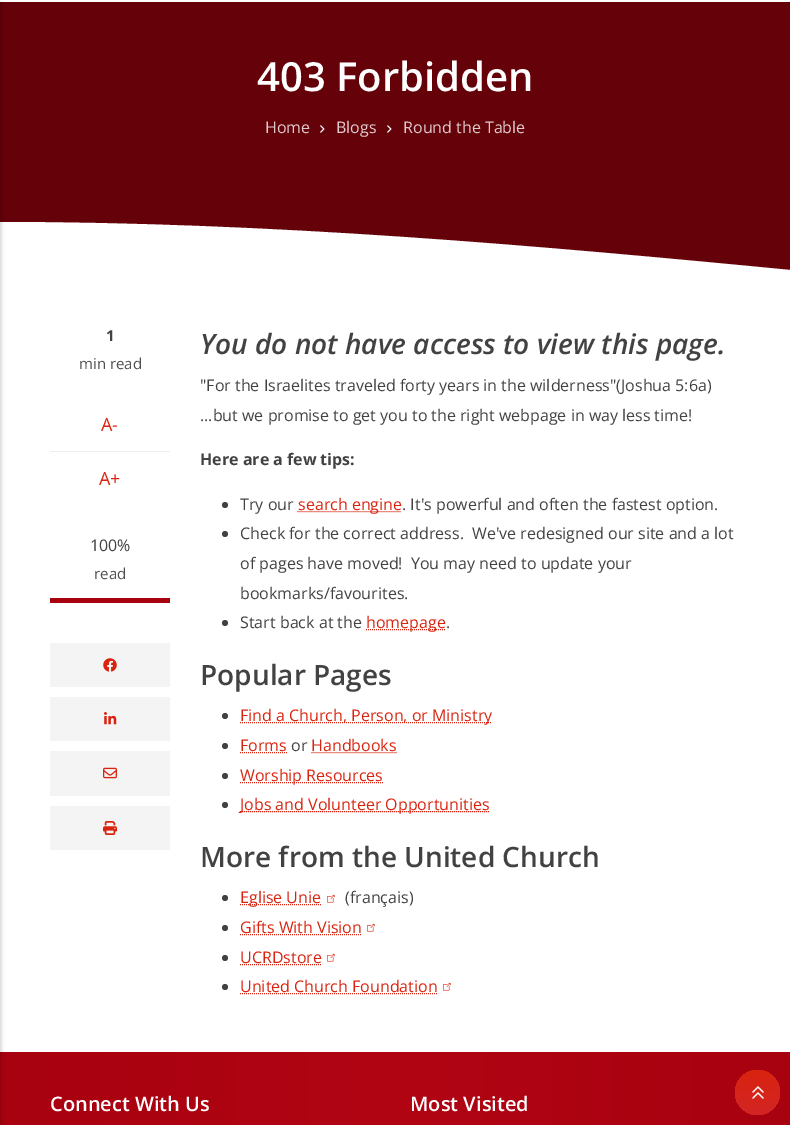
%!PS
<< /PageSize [790 1125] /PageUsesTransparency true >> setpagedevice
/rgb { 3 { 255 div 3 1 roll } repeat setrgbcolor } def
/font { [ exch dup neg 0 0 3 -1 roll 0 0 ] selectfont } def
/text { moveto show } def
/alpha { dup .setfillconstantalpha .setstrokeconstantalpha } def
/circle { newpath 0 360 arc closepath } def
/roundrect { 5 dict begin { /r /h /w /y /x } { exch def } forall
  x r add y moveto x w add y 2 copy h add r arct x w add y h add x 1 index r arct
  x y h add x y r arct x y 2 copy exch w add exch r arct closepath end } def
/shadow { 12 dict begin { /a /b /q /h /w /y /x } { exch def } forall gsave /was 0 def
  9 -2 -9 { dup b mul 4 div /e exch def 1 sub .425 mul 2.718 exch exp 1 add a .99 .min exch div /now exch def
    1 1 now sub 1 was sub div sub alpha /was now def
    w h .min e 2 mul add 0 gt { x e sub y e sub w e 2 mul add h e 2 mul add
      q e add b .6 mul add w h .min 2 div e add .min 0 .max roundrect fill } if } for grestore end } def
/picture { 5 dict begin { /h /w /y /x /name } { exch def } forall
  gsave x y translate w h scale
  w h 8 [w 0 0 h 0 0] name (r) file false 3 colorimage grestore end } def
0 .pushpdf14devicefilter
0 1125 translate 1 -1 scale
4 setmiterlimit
255 255 255 rgb
0 0 790 1125 rectfill
101 1 9 rgb
0 2 790 268 rectfill
gsave
0 222 790 100 rectclip
255 255 255 rgb
-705 320 moveto 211 0 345 -98 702 -98 rcurveto 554 0 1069 96 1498 98 rcurveto 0 7 rlineto -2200 0 rlineto closepath fill
grestore
gsave 0 1052 moveto 790 0 rlineto 0 73 rlineto -790 0 rlineto closepath clip newpath
<< /ShadingType 2 /ColorSpace /DeviceRGB /Coords [0 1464 790 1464] /Extend [true true] /Function << /FunctionType 3 /Domain [0 1] /Functions [<< /FunctionType 2 /Domain [0 1] /C0 [0.659 0.004 0.059] /C1 [0.694 0.02 0.078] /N 1 >> << /FunctionType 2 /Domain [0 1] /C0 [0.694 0.02 0.078] /C1 [0.659 0.004 0.059] /N 1 >>] /Bounds [0.5] /Encode [0 1 0 1] >> >> shfill grestore
0 0 0 rgb
-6 3 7 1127 0 2 0.2 shadow
(img_01.rgb) 320 125 5 8 picture
(img_01.rgb) 387 125 5 8 picture
238 238 238 rgb
50 451 120 1 rectfill
168 1 15 rgb
50 598 120 5 rectfill
244 244 244 rgb
50 643 120 44 rectfill
(img_02.rgb) 103 658 14 14 picture
50 697 120 44 rectfill
(img_03.rgb) 104 712 13 13 picture
50 751 120 45 rectfill
(img_04.rgb) 103 767 14 12 picture
50 806 120 44 rectfill
(img_05.rgb) 103 821 14 14 picture
66 66 66 rgb
225 505 3 circle fill
217 35 15 rgb
[1 1] 0 setdash
297.5 511.5 moveto 104 0 rlineto stroke
66 66 66 rgb
225 534 3 circle fill
225 623 3 circle fill
217 35 15 rgb
366 629.5 moveto 79.5 0 rlineto stroke
66 66 66 rgb
225 716 3 circle fill
217 35 15 rgb
240 722.5 moveto 252 0 rlineto stroke
66 66 66 rgb
225 746 3 circle fill
217 35 15 rgb
240 752.5 moveto 47 0 rlineto stroke
311.5 752.5 moveto 85 0 rlineto stroke
66 66 66 rgb
225 776 3 circle fill
217 35 15 rgb
240 782.5 moveto 143 0 rlineto stroke
66 66 66 rgb
225 805 3 circle fill
217 35 15 rgb
240 811.5 moveto 249 0 rlineto stroke
66 66 66 rgb
225 898 3 circle fill
217 35 15 rgb
240 904.5 moveto 81 0 rlineto stroke
(img_06.rgb) 327 894 8 9 picture
66 66 66 rgb
225 928 3 circle fill
217 35 15 rgb
240 934.5 moveto 121.5 0 rlineto stroke
(img_06.rgb) 367 923 8 9 picture
66 66 66 rgb
225 958 3 circle fill
217 35 15 rgb
240 964.5 moveto 81.5 0 rlineto stroke
(img_06.rgb) 327 953 8 9 picture
66 66 66 rgb
225 987 3 circle fill
217 35 15 rgb
240 993.5 moveto 197.5 0 rlineto stroke
(img_06.rgb) 443 982 8 9 picture
gsave 757.5 1092.5 22.5 circle clip newpath
<< /ShadingType 2 /ColorSpace /DeviceRGB /Coords [758 1115 758 1070] /Extend [true true] /Function << /FunctionType 2 /Domain [0 1] /C0 [0.827 0.145 0.145] /C1 [0.851 0.137 0.059] /N 1 >> >> shfill grestore
(img_07.rgb) 752 1086 12 13 picture
/OpenSans-SemiBold 40 font
255 255 255 rgb
(403 Forbidden) 257 91 text
/OpenSans-Regular 16 font
224 204 206 rgb
(Home) 265 133 text
(Blogs) 336 133 text
(Round the Table) 403 133 text
/OpenSans-Bold 15 font
66 66 66 rgb
(1) 106 341 text
/OpenSans-Regular 15 font
80 80 80 rgb
(min read) 79 369 text
/OpenSans-Regular 18 font
217 35 15 rgb
(A-) 101 431 text
(A+) 99 485 text
/OpenSans-Regular 16 font
66 66 66 rgb
(100%) 90 551 text
/OpenSans-Regular 15 font
80 80 80 rgb
(read) 94 579 text
/OpenSans-SemiBoldItalic 28 font
66 66 66 rgb
(You do not have access to view this page.) 200 354 text
/OpenSans-Regular 16 font
("For the Israelites traveled forty years in the wilderness"\(Joshua 5:6a\)) 200 391 text
(...but we promise to get you to the right webpage in way less time!) 200 421 text
/OpenSans-Bold 16 font
(Here are a few tips:) 200 465 text
/OpenSans-Regular 16 font
(Try our) 240 510 text
217 35 15 rgb
(search engine) 298 510 text
66 66 66 rgb
(. It's powerful and often the fastest option.) 402 510 text
(Check for the correct address.  We've redesigned our site and a lot) 240 539 text
(of pages have moved!  You may need to update your) 240 569 text
(bookmarks/favourites.) 240 599 text
(Start back at the) 240 628 text
217 35 15 rgb
(homepage) 366 628 text
66 66 66 rgb
(.) 446 628 text
/OpenSans-SemiBold 28 font
(Popular Pages) 200 685 text
/OpenSans-Regular 16 font
217 35 15 rgb
(Find a Church, Person, or Ministry) 240 721 text
(Forms) 240 751 text
66 66 66 rgb
(or) 291 751 text
217 35 15 rgb
(Handbooks) 311 751 text
(Worship Resources) 240 781 text
(Jobs and Volunteer Opportunities) 240 810 text
/OpenSans-SemiBold 28 font
66 66 66 rgb
(More from the United Church) 200 867 text
/OpenSans-Regular 16 font
217 35 15 rgb
(Eglise Unie) 240 903 text
66 66 66 rgb
(\(français\)) 345 903 text
217 35 15 rgb
(Gifts With Vision) 240 933 text
(UCRDstore) 240 963 text
(United Church Foundation) 240 992 text
/OpenSans-SemiBold 20 font
255 255 255 rgb
(Connect With Us) 50 1111 text
(Most Visited) 410 1111 text
.poppdf14devicefilter showpage
